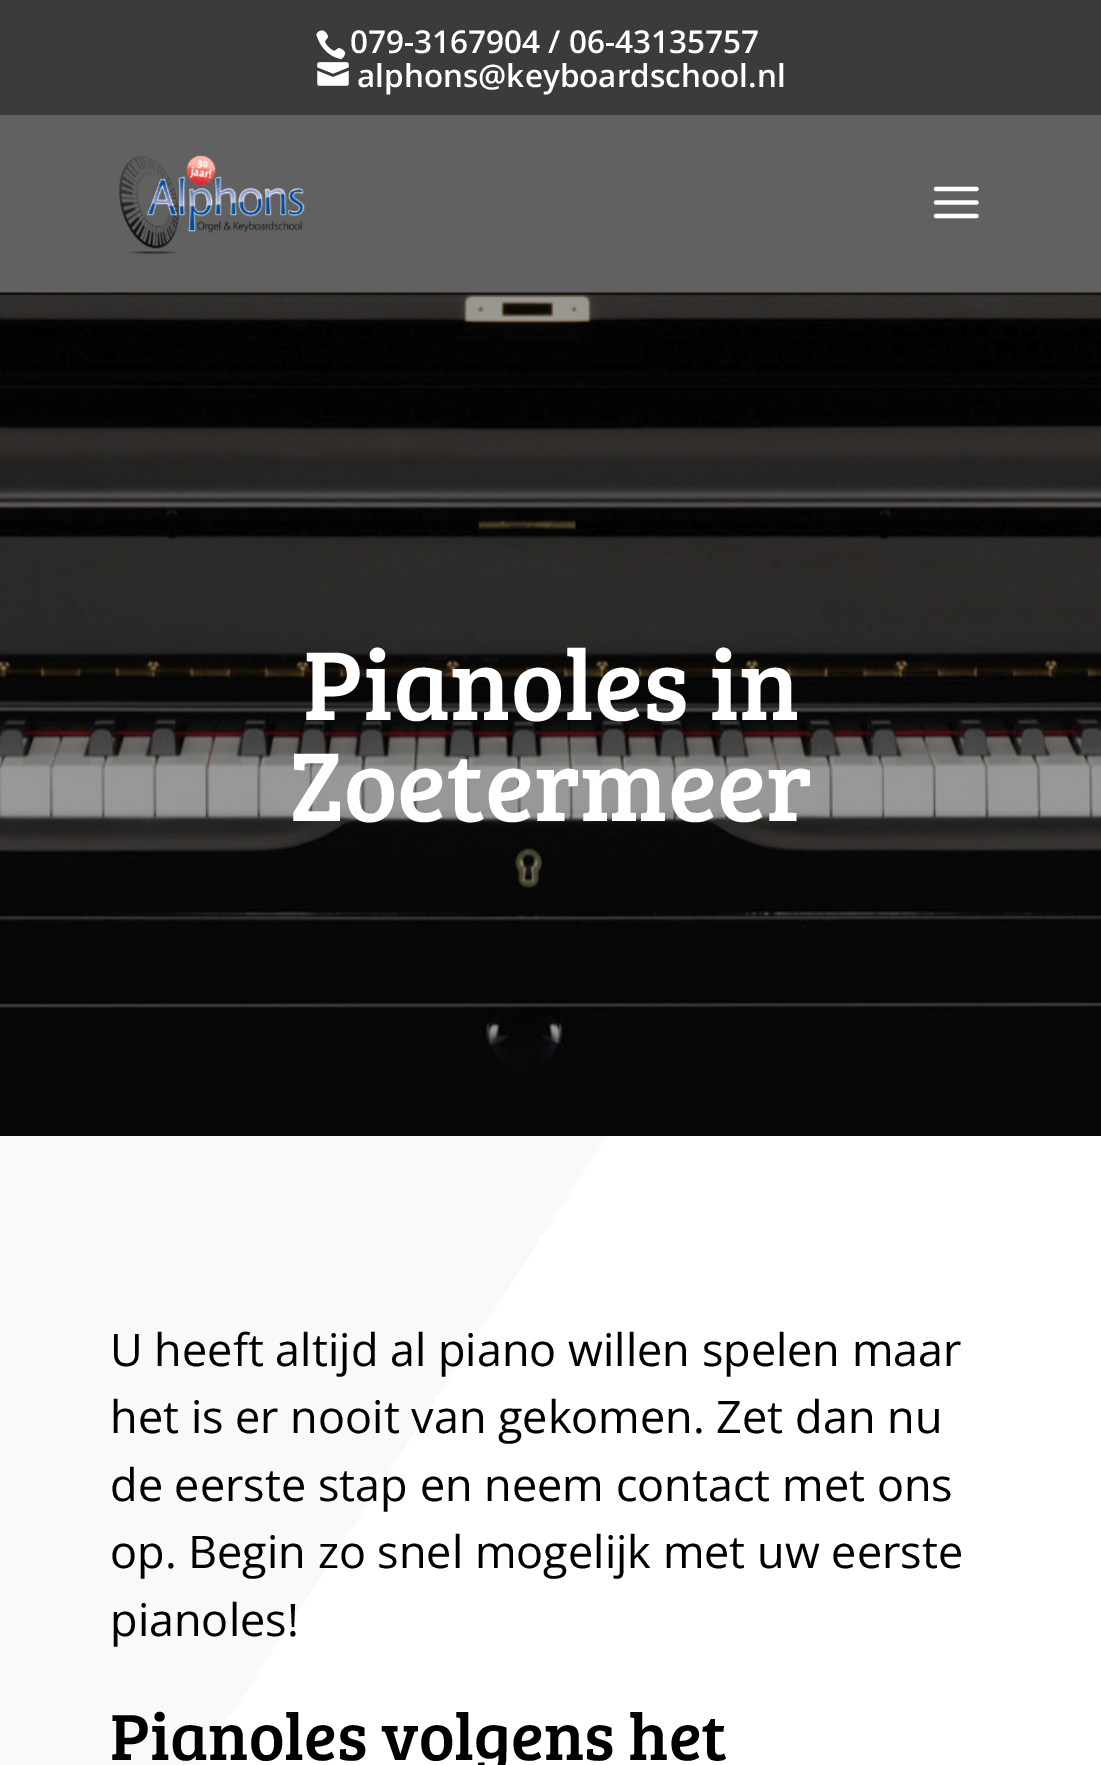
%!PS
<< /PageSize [1101 1765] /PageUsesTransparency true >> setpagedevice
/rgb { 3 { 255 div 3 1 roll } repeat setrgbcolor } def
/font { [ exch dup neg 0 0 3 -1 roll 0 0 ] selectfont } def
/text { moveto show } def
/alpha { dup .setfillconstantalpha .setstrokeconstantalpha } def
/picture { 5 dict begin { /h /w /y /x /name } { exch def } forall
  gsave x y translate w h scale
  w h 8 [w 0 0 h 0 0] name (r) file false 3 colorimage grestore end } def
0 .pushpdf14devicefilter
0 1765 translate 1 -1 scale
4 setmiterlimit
255 255 255 rgb
0 0 1101 1765 rectfill
59 59 59 rgb
0 0 1101 115 rectfill
(img_01.rgb) 316 30 30 30 picture
(img_02.rgb) 317 62 32 24 picture
(img_05.rgb) 0 292 1101 844 picture
0.1 alpha
0 0 0 rgb
0 295 moveto 0 2 rlineto 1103 0 rlineto 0 -180 rlineto -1 0 rlineto 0 178 rlineto closepath fill
0.62 alpha
0 115 1101 180 rectfill
1 alpha
(img_03.rgb) 119 155 186 100 picture
(img_04.rgb) 933 186 46 33 picture
gsave 0 1136 moveto 606 0 rlineto 0 629 rlineto -606 0 rlineto closepath clip newpath
<< /ShadingType 2 /ColorSpace /DeviceRGB /Coords [-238 1503 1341 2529] /Extend [true true] /Function << /FunctionType 3 /Domain [0 1] /Functions [<< /FunctionType 2 /Domain [0 1] /C0 [0.976 0.976 0.976] /C1 [0.976 0.976 0.976] /N 1 >> << /FunctionType 2 /Domain [0 1] /C0 [1 1 1] /C1 [1 1 1] /N 1 >>] /Bounds [0.27] /Encode [0 1 0 1] >> >> shfill grestore
/OpenSans-SemiBold 31.5 font
255 255 255 rgb
(079-3167904 / 06-43135757) 350 53 text
(alphons@keyboardschool.nl) 357 87 text
/BreeSerif-Regular 101.25 font
(Pianoles in) 303 720 text
(Zoetermeer) 290 821 text
/OpenSans-Regular 45 font
0 0 0 rgb
(U heeft altijd al piano willen spelen maar) 110 1366 text
(het is er nooit van gekomen. Zet dan nu) 110 1433 text
(de eerste stap en neem contact met ons) 110 1501 text
(op. Begin zo snel mogelijk met uw eerste) 110 1568 text
(pianoles!) 110 1636 text
/BreeSerif-Regular 67.5 font
(Pianoles volgens het) 110 1760 text
.poppdf14devicefilter showpage
